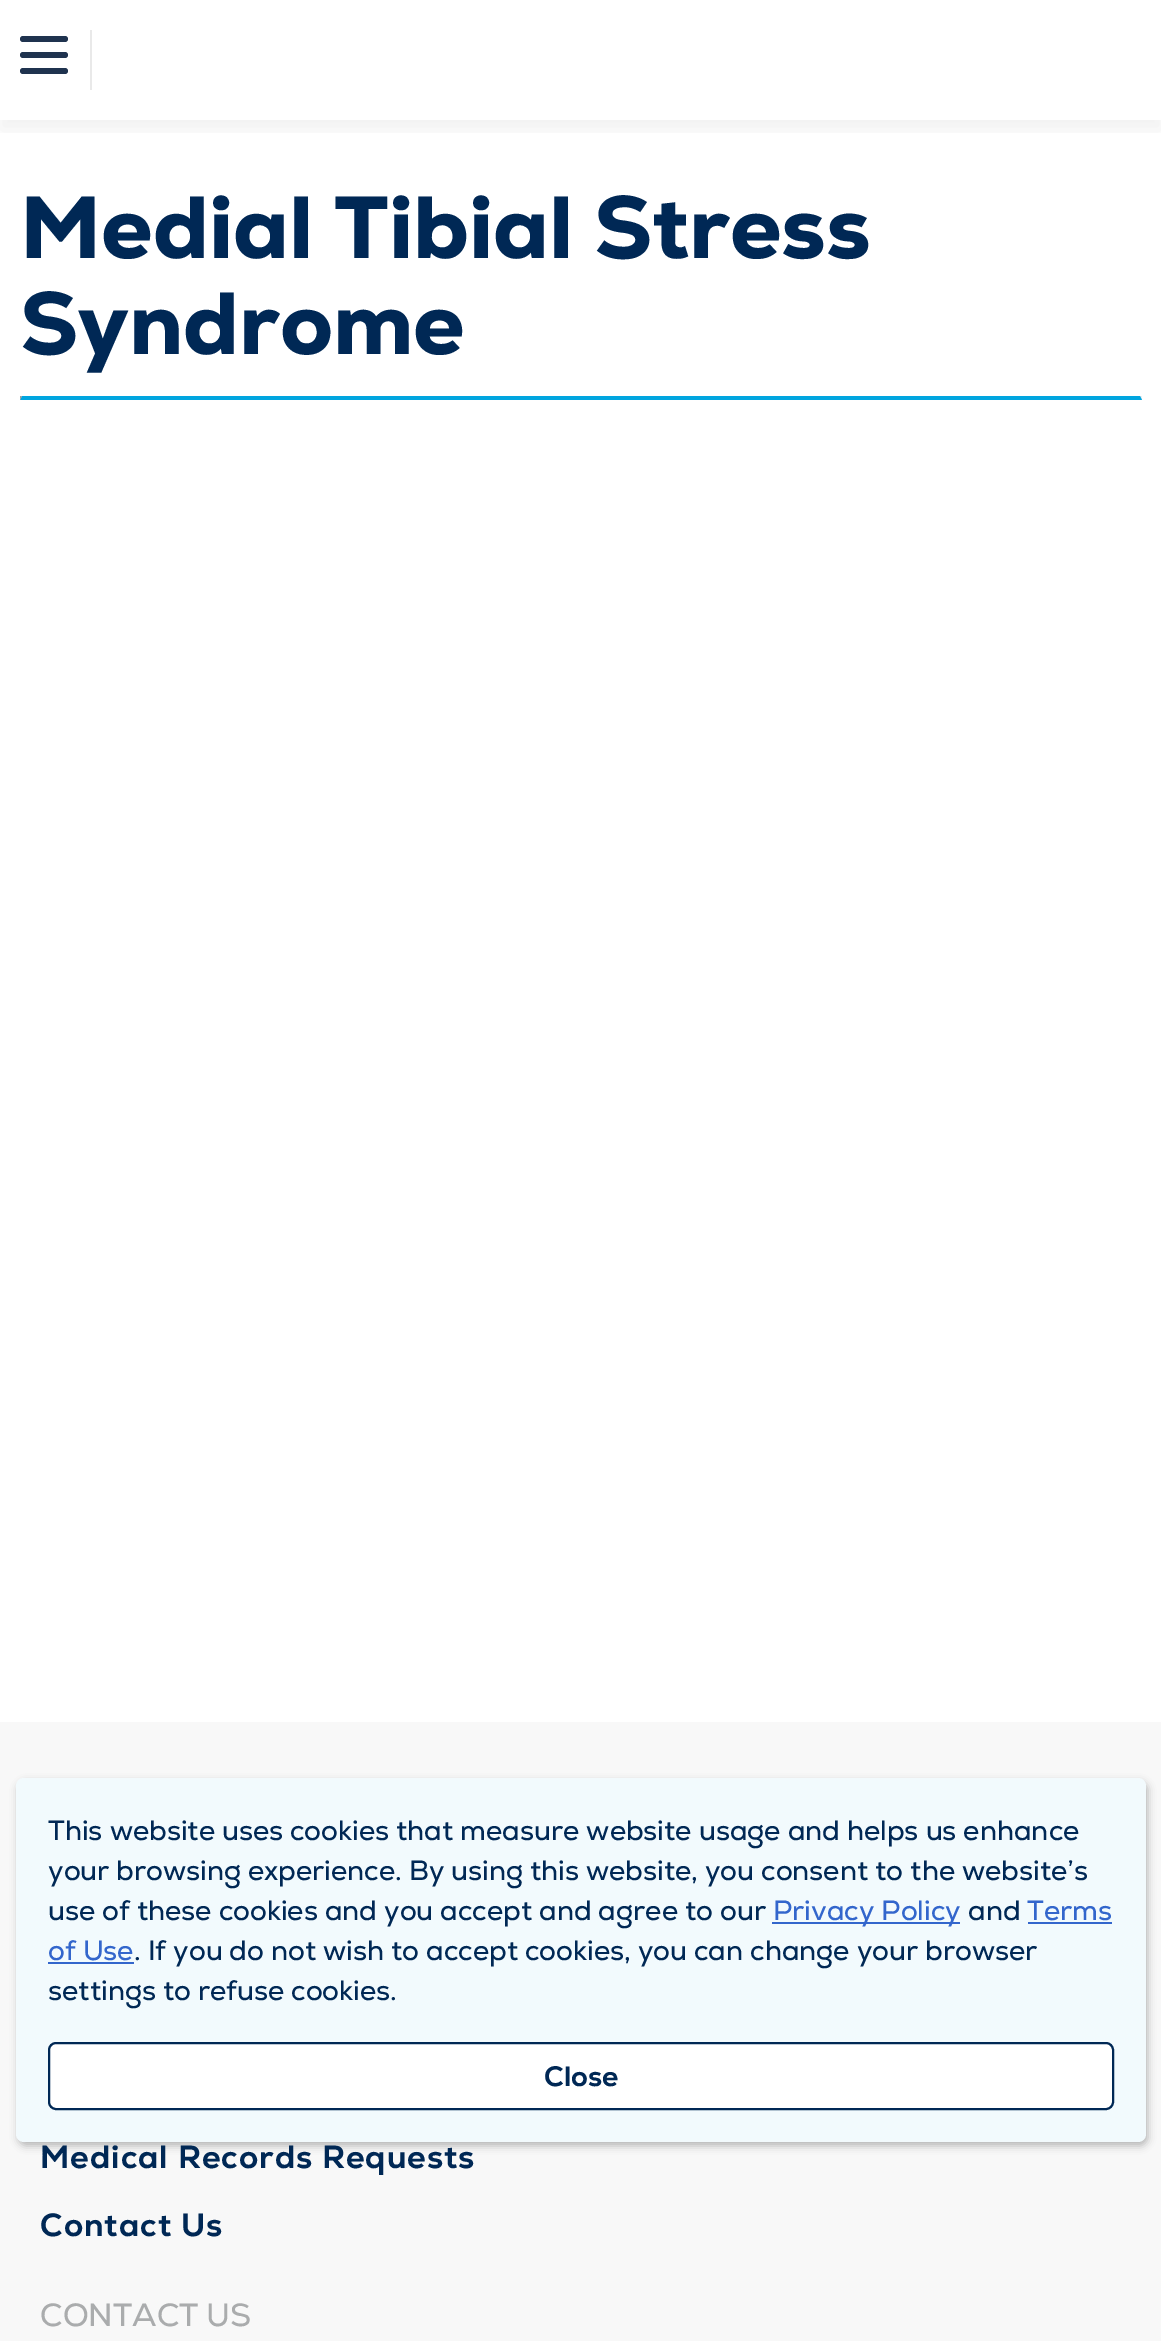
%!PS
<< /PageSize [1161 2341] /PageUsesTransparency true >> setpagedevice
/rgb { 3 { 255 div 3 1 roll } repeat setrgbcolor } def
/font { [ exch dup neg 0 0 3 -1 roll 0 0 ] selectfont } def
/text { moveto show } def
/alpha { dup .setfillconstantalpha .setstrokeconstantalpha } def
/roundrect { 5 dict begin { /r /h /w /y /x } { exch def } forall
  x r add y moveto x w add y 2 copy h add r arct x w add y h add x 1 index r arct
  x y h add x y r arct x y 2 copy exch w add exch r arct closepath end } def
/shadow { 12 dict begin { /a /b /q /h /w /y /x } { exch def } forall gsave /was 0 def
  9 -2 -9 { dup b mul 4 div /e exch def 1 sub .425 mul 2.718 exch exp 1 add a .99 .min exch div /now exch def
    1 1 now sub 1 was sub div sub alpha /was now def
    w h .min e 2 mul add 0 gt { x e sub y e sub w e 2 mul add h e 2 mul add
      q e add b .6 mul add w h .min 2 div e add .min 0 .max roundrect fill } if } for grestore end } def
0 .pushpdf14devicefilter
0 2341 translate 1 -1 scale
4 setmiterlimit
255 255 255 rgb
0 0 1161 2341 rectfill
gsave
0 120 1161 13 rectclip
0 0 0 rgb
0 10 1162 120 0 10 0.05 shadow
grestore
31 51 79 rgb
20 36 48 6 3 roundrect fill
20 52 48 6 3 roundrect fill
20 68 48 6 3 roundrect fill
233 233 233 rgb
90 30 2 60 rectfill
238 238 238 rgb
1142 396 moveto 0 4 rlineto -2 -4 rlineto closepath fill
0 165 223 rgb
1142 400 moveto -1122 0 rlineto 2 -4 rlineto 1118 0 rlineto closepath fill
159 159 159 rgb
20 400 moveto 0 -4 rlineto 2 0 rlineto closepath fill
248 248 248 rgb
0 1722 1161 619 rectfill
0 0 0 rgb
18 1782 1130 364 8 4 0.25 shadow
242 250 253 rgb
16 1778 1130 364 8 roundrect fill
51 102 204 rgb
772 1922 188 2 rectfill
1028 1922 84 2 rectfill
48 1962 86 2 rectfill
255 255 255 rgb
49 2043 1064 66 7 roundrect gsave fill grestore
0 40 85 rgb
2 setlinewidth
stroke
/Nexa-Black 88 font
(Medial Tibial Stress) 20 258 text
(Syndrome) 20 354 text
/Nexa-Regular 28 font
(This website uses cookies that measure website usage and helps us enhance) 48 1840 text
(your browsing experience. By using this website, you consent to the website’s) 48 1880 text
(use of these cookies and you accept and agree to our) 48 1920 text
51 102 204 rgb
(Privacy Policy) 773 1920 text
0 40 85 rgb
(and) 968 1920 text
51 102 204 rgb
(Terms) 1027 1920 text
(of Use) 48 1960 text
0 40 85 rgb
(. If you do not wish to accept cookies, you can change your browser) 134 1960 text
(settings to refuse cookies.) 48 2000 text
/Nexa-ExtraBold 28 font
(Close) 544 2086 text
/Nexa-ExtraBold 32 font
40 2168 moveto 1 0 (Medical Records Requests) ashow
40 2236 moveto 1 0 (Contact Us) ashow
/Nexa-Regular 32 font
170 172 173 rgb
(CONTACT US) 40 2326 text
.poppdf14devicefilter showpage
